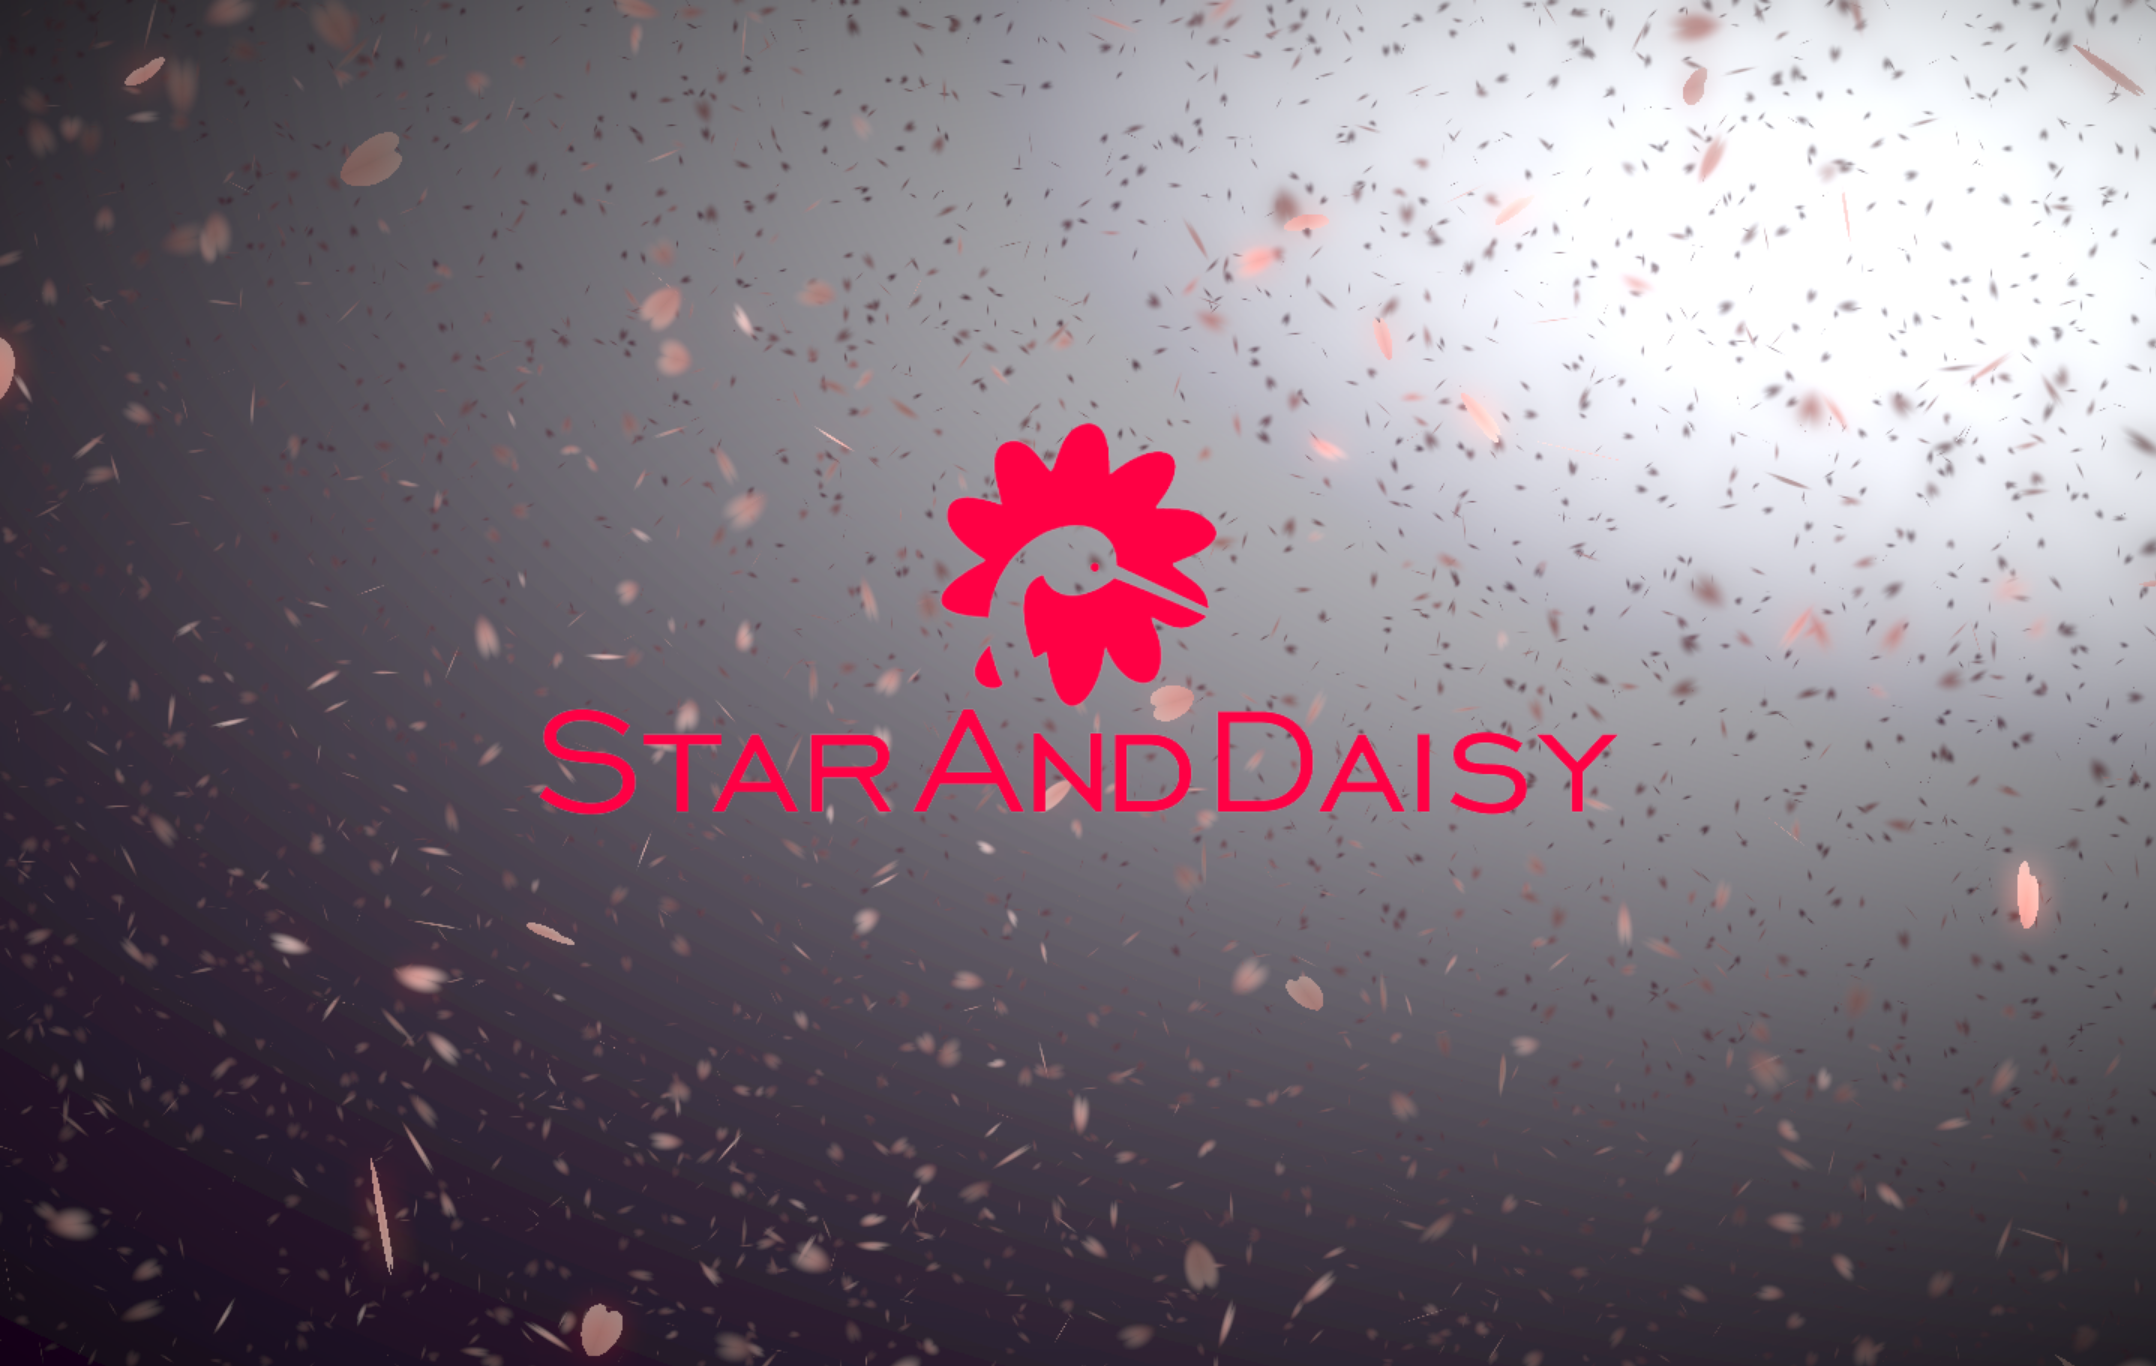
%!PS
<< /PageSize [2156 1366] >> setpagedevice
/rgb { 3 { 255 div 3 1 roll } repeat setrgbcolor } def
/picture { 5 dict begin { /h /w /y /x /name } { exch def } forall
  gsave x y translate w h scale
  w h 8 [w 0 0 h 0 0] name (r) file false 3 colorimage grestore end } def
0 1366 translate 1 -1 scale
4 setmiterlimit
255 255 255 rgb
0 0 2156 1366 rectfill
(img_01.rgb) 0 0 2156 1366 picture
(img_02.rgb) 538 422 1081 393 picture
showpage
